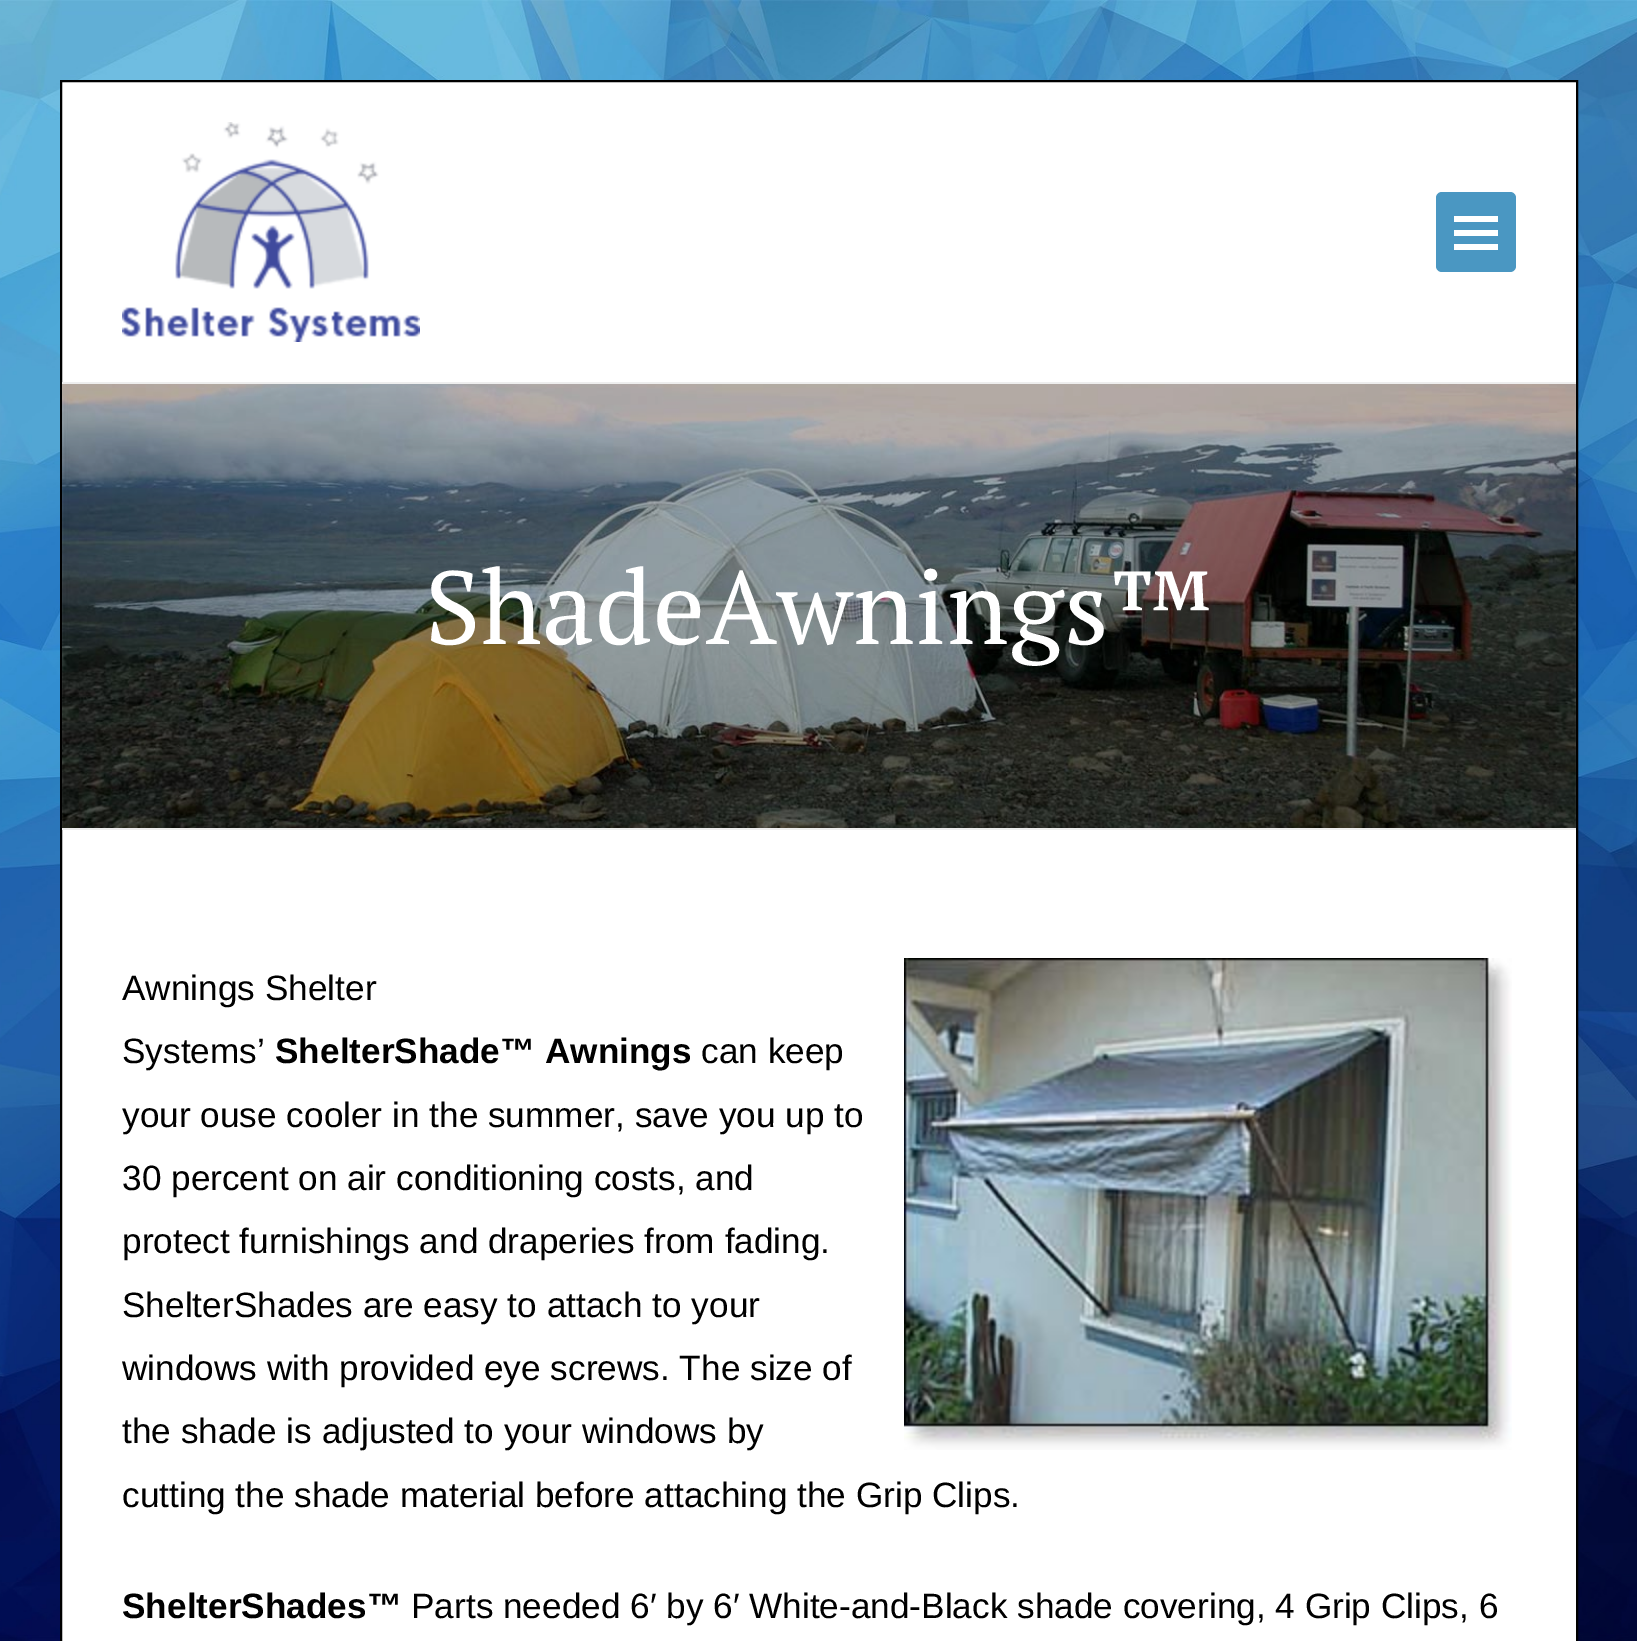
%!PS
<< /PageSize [1637 1641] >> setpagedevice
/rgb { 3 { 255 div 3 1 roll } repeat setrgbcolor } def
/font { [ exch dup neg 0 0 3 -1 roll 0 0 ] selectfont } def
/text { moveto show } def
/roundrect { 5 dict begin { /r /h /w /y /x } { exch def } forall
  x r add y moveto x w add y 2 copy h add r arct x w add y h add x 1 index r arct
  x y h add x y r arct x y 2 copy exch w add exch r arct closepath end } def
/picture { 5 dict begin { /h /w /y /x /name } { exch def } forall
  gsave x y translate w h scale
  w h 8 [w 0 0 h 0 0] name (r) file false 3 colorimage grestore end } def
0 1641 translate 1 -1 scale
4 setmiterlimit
255 255 255 rgb
0 0 1637 1641 rectfill
(img_01.rgb) 0 0 1637 1641 picture
61 81 moveto 1516 0 rlineto 0 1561 rlineto -1516 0 rlineto closepath gsave fill grestore
0 0 0 rgb
2 setlinewidth
stroke
(img_02.rgb) 122 122 298 220 picture
74 151 194 rgb
1436 192 80 80 6 roundrect fill
255 255 255 rgb
1454 230 44 6 rectfill
1454 216 44 6 rectfill
1454 244 44 6 rectfill
(img_03.rgb) 62 384 1514 444 picture
238 238 238 rgb
62 382 1514 2 rectfill
62 828 1514 2 rectfill
(img_04.rgb) 904 958 608 492 picture
/PTSerif-Regular 103.5 font
255 255 255 rgb
425 644 moveto 0.6 0 (ShadeAwnings™) ashow
/LiberationSans-Regular 35.2 font
0 0 0 rgb
(Awnings Shelter) 122 1000 text
(Systems’) 122 1063 text
/LiberationSans-Bold 35.2 font
(ShelterShade™ Awnings) 275 1063 text
/LiberationSans-Regular 35.2 font
(can keep) 701 1063 text
(your ouse cooler in the summer, save you up to) 122 1127 text
(30 percent on air conditioning costs, and) 122 1190 text
(protect furnishings and draperies from fading.) 122 1253 text
(ShelterShades are easy to attach to your) 122 1317 text
(windows with provided eye screws. The size of) 122 1380 text
(the shade is adjusted to your windows by) 122 1443 text
(cutting the shade material before attaching the Grip Clips.) 122 1507 text
/LiberationSans-Bold 35.2 font
(ShelterShades™) 122 1618 text
/LiberationSans-Regular 35.2 font
(Parts needed 6′ by 6′ White-and-Black shade covering, 4 Grip Clips, 6) 411 1618 text
showpage
